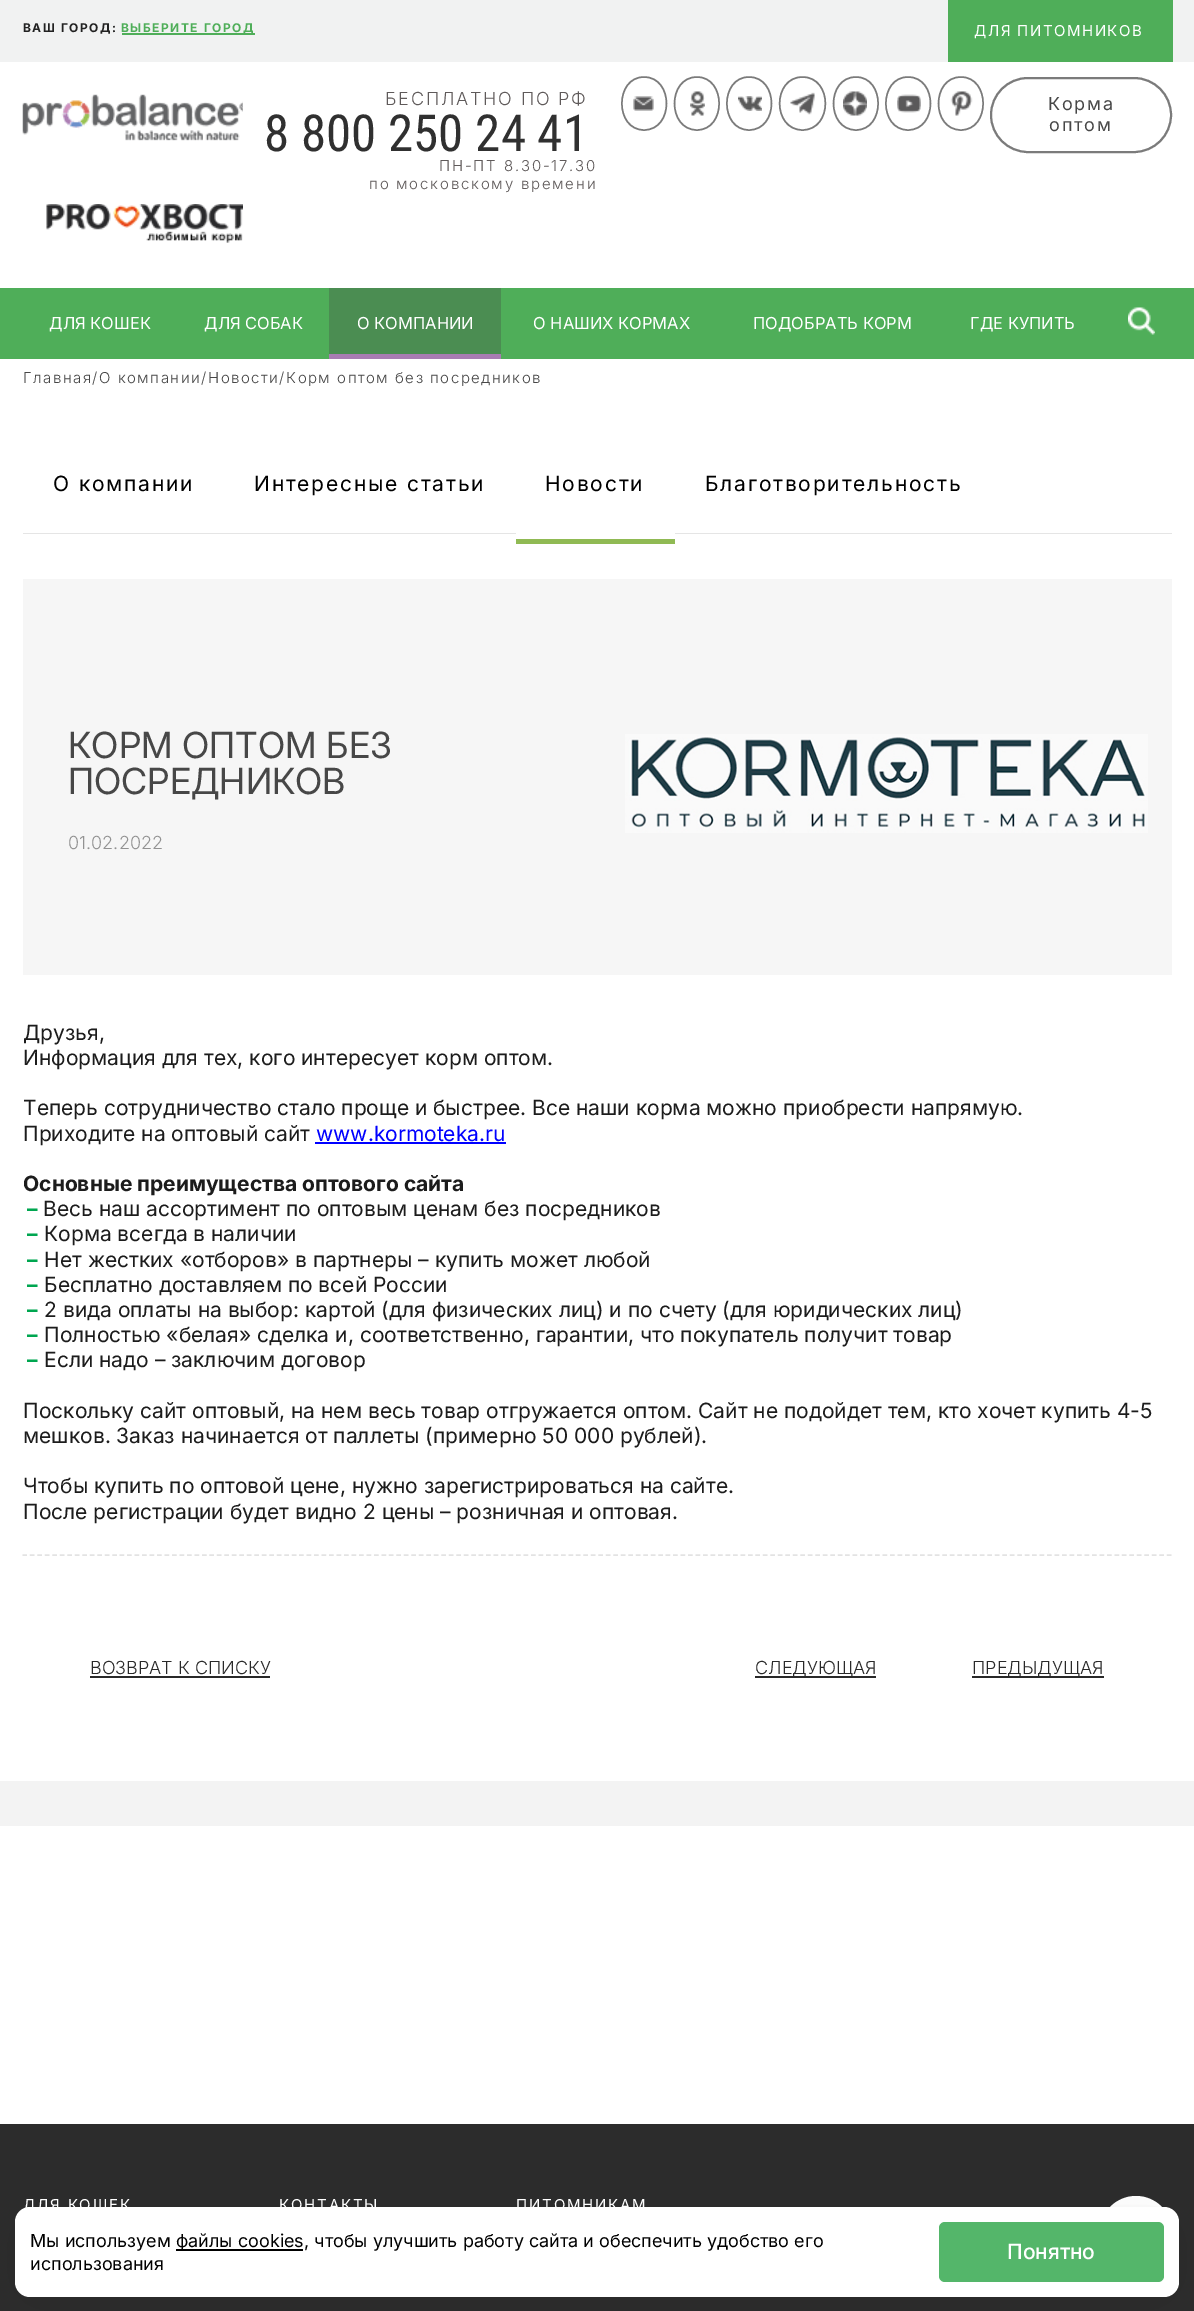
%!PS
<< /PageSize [1194 2311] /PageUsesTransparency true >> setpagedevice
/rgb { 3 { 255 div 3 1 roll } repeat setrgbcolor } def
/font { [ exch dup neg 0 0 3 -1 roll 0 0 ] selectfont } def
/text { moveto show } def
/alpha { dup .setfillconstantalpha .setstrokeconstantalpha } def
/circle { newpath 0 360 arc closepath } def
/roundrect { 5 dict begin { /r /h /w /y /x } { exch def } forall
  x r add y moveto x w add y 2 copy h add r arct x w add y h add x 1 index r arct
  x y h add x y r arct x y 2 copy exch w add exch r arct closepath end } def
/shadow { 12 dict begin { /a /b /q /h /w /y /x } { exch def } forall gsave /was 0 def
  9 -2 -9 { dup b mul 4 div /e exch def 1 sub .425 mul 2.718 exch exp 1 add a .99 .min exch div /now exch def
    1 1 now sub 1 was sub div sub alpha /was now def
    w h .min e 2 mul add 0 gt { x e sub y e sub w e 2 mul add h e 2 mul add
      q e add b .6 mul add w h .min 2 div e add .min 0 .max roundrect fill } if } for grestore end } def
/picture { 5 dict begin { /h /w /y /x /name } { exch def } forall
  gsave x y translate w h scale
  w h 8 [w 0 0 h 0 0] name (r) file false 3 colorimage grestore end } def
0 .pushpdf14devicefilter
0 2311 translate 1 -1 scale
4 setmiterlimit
255 255 255 rgb
0 0 1194 2311 rectfill
241 242 242 rgb
0 0 1194 62 rectfill
79 174 89 rgb
122 33 133 2 rectfill
948 0 225 62 rectfill
(img_01.rgb) 22 94 221 47 picture
(img_02.rgb) 46 204 197 39 picture
(img_03.rgb) 633 96 21 15 picture
123 123 123 rgb
1.5 setlinewidth
644 77 moveto 30 0 30 53 0 53 rcurveto -29.5 0 -29.5 -53 0 -53 rcurveto closepath stroke
(img_04.rgb) 690 91 15 25 picture
697 77 moveto 29.5 0 29.5 53 0 53 rcurveto -30 0 -30 -53 0 -53 rcurveto closepath stroke
(img_05.rgb) 738 96 24 15 picture
749 77 moveto 30 0 30 53 0 53 rcurveto -29.5 0 -29.5 -53 0 -53 rcurveto closepath stroke
(img_06.rgb) 790 92 25 23 picture
802.5 77 moveto 30.5 0 30.5 53 0 53 rcurveto -30.5 0 -30.5 -53 0 -53 rcurveto closepath stroke
(img_07.rgb) 843 91 24 25 picture
856 77 moveto 29.5 0 29.5 53 0 53 rcurveto -30 0 -30 -53 0 -53 rcurveto closepath stroke
(img_08.rgb) 897 94 24 19 picture
908 77 moveto 30 0 30 53 0 53 rcurveto -29.5 0 -29.5 -53 0 -53 rcurveto closepath stroke
(img_09.rgb) 950 91 23 25 picture
961 77 moveto 29.5 0 29.5 53 0 53 rcurveto -30 0 -30 -53 0 -53 rcurveto closepath stroke
2 setlinewidth
991 78 180 74 37 roundrect stroke
79 174 89 rgb
0 288 1194 71 rectfill
75 141 82 rgb
329 288 172 66 rectfill
169 124 179 rgb
329 354 172 5 rectfill
(img_10.rgb) 1128 307 27 28 picture
243 243 243 rgb
0 1781 1194 45 rectfill
229 229 229 rgb
23 533 1149 1 rectfill
255 255 255 rgb
516 533 159 1 rectfill
144 186 84 rgb
516 539 159 5 rectfill
227 227 227 rgb
1.5 setlinewidth
[4.5 2.98] 0 setdash
22.5 1555 moveto 1149 0 rlineto stroke
246 246 246 rgb
23 579 1149 396 rectfill
(img_11.rgb) 625 734 523 99 picture
0 0 255 rgb
315 1142 191 2 rectfill
41 41 41 rgb
90 1676 180 2 rectfill
755 1676 121 2 rectfill
972 1676 132 2 rectfill
44 44 44 rgb
0 2124 1194 187 rectfill
255 255 255 rgb
1136 2232 36 circle fill
0 0 0 rgb
15 2213 1164 90 15 32.5 0.05 shadow
255 255 255 rgb
15 2207 1164 90 15 roundrect fill
0 0 0 rgb
176 2249 127 2 rectfill
84 182 106 rgb
939 2222 225 60 6 roundrect fill
/Inter-Bold 12 font
34 34 34 rgb
23 32 moveto 1.5 0 (ВАШ ГОРОД:) ashow
79 174 89 rgb
121 32 moveto 1.5 0 (ВЫБЕРИТЕ ГОРОД) ashow
/Inter-Regular 15 font
255 255 255 rgb
974 36 moveto 1.5 0 (ДЛЯ ПИТОМНИКОВ) ashow
/Inter-Light 18 font
95 90 90 rgb
385 105 moveto 1.8 0 (БЕСПЛАТНО ПО РФ) ashow
/RobotoCondensed-Regular 51 font
48 48 48 rgb
(8 800 250 24 41) 264 151 text
/Inter-Light 15 font
95 90 90 rgb
439 171 moveto 1.8 0 (ПН-ПТ 8.30-17.30) ashow
369 189 moveto 1.8 0 (по московскому времени) ashow
/Inter-Regular 18 font
71 71 71 rgb
1048 110 moveto 1.8 0 (Корма) ashow
1049 131 moveto 1.8 0 (оптом) ashow
/Inter-Regular 16.5 font
255 255 255 rgb
(ДЛЯ КОШЕК) 49 329 text
(ДЛЯ СОБАК) 204 329 text
(О КОМПАНИИ) 357 329 text
(О НАШИХ КОРМАХ) 533 329 text
(ПОДОБРАТЬ КОРМ) 753 329 text
(ГДЕ КУПИТЬ) 970 329 text
/Inter-Light 15 font
71 71 71 rgb
23 383 moveto 1.5 0 (Главная/О компании/Новости/Корм оптом без посредников) ashow
/Inter-Regular 21 font
0 0 0 rgb
53 491 moveto 1.8 0 (О компании) ashow
254 491 moveto 1.8 0 (Интересные статьи) ashow
545 491 moveto 1.8 0 (Новости) ashow
705 491 moveto 1.8 0 (Благотворительность) ashow
/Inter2-Regular 36 font
71 71 71 rgb
(КОРМ ОПТОМ БЕЗ) 68 758 text
(ПОСРЕДНИКОВ) 68 794 text
/Inter-Light 18 font
146 146 146 rgb
(01.02.2022) 68 849 text
/Inter-Regular 21 font
28 28 28 rgb
(Друзья,) 23 1040 text
(Информация для тех, кого интересует корм оптом.) 23 1065 text
(Теперь сотрудничество стало проще и быстрее. Все наши корма можно приобрести напрямую.) 23 1115 text
(Приходите на оптовый сайт) 23 1141 text
0 0 255 rgb
(www.kormoteka.ru) 316 1141 text
/Inter-Bold 21 font
28 28 28 rgb
(Основные преимущества оптового сайта) 23 1191 text
0 166 80 rgb
(–) 27 1216 text
/Inter-Regular 21 font
28 28 28 rgb
(Весь наш ассортимент по оптовым ценам без посредников) 43 1216 text
/Inter-Bold 21 font
0 166 80 rgb
(–) 27 1241 text
/Inter-Regular 21 font
28 28 28 rgb
(Корма всегда в наличии) 44 1241 text
/Inter-Bold 21 font
0 166 80 rgb
(–) 27 1267 text
/Inter-Regular 21 font
28 28 28 rgb
(Нет жестких «отборов» в партнеры – купить может любой) 44 1267 text
/Inter-Bold 21 font
0 166 80 rgb
(–) 27 1292 text
/Inter-Regular 21 font
28 28 28 rgb
(Бесплатно доставляем по всей России) 44 1292 text
/Inter-Bold 21 font
0 166 80 rgb
(–) 27 1317 text
/Inter-Regular 21 font
28 28 28 rgb
(2 вида оплаты на выбор: картой \(для физических лиц\) и по счету \(для юридических лиц\)) 44 1317 text
/Inter-Bold 21 font
0 166 80 rgb
(–) 27 1342 text
/Inter-Regular 21 font
28 28 28 rgb
(Полностью «белая» сделка и, соответственно, гарантии, что покупатель получит товар) 44 1342 text
/Inter-Bold 21 font
0 166 80 rgb
(–) 27 1367 text
/Inter-Regular 21 font
28 28 28 rgb
(Если надо – заключим договор) 44 1367 text
(Поскольку сайт оптовый, на нем весь товар отгружается оптом. Сайт не подойдет тем, кто хочет купить 4-5) 23 1418 text
(мешков. Заказ начинается от паллеты \(примерно 50 000 рублей\).) 23 1443 text
(Чтобы купить по оптовой цене, нужно зарегистрироваться на сайте.) 23 1493 text
(После регистрации будет видно 2 цены – розничная и оптовая.) 23 1519 text
/Inter-Light 18 font
41 41 41 rgb
(ВОЗВРАТ К СПИСКУ) 90 1674 text
(СЛЕДУЮЩАЯ) 755 1674 text
(ПРЕДЫДУЩАЯ) 972 1674 text
/Inter-Regular 15 font
255 255 255 rgb
23 2210 moveto 1.8 0 (ДЛЯ КОШЕК) ashow
279 2210 moveto 1.8 0 (КОНТАКТЫ) ashow
516 2210 moveto 1.8 0 (ПИТОМНИКАМ) ashow
/Inter-Regular 18 font
0 0 0 rgb
(Мы используем) 30 2247 text
(файлы cookies, чтобы улучшить работу сайта и обеспечить удобство его) 176 2247 text
(использования) 30 2270 text
/Inter-Medium 21 font
255 255 255 rgb
(Понятно) 1007 2259 text
.poppdf14devicefilter showpage
